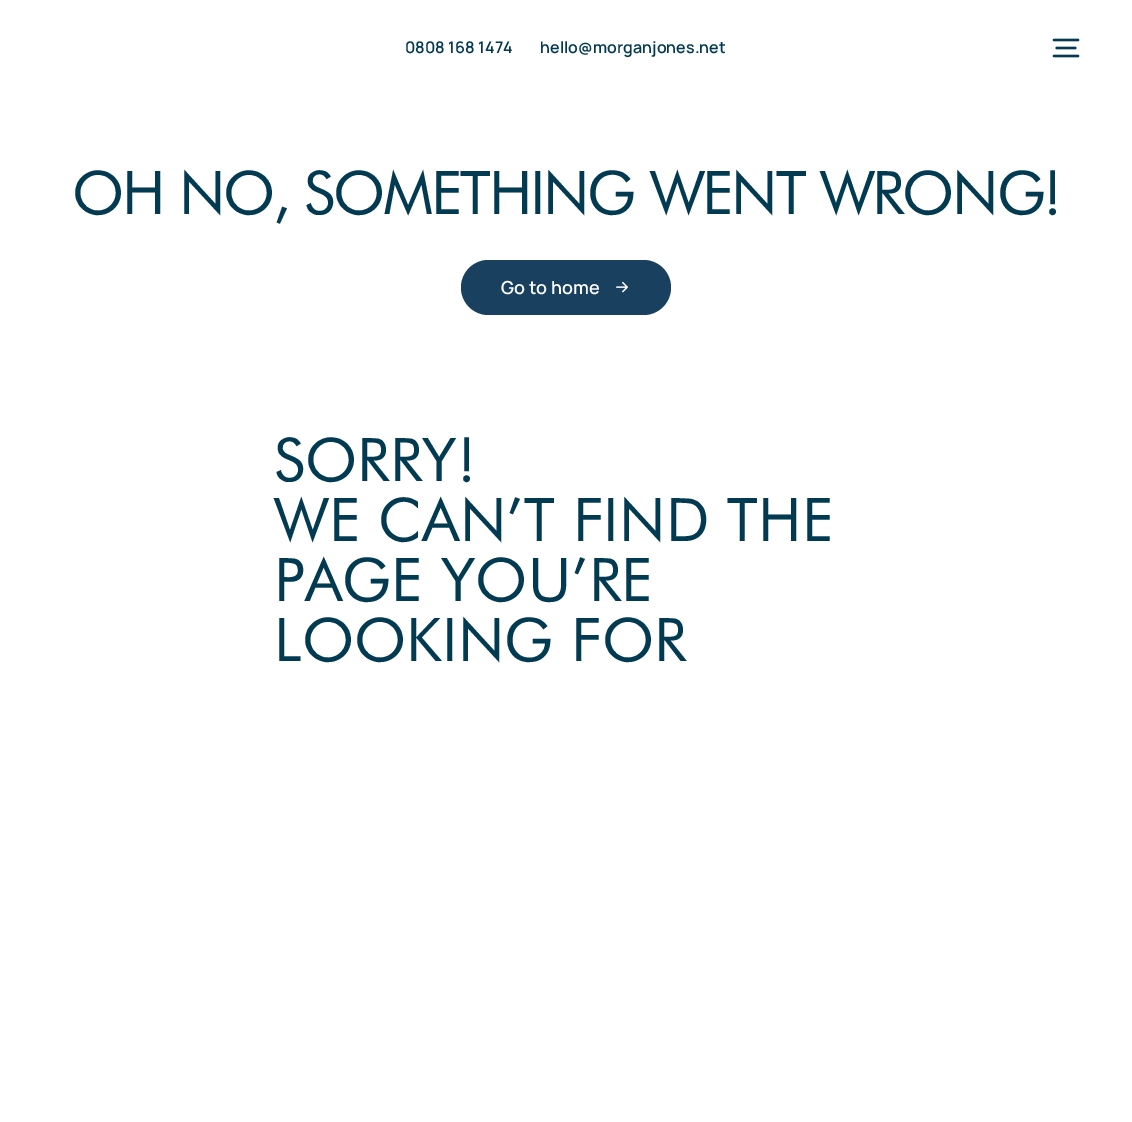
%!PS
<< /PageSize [1132 1122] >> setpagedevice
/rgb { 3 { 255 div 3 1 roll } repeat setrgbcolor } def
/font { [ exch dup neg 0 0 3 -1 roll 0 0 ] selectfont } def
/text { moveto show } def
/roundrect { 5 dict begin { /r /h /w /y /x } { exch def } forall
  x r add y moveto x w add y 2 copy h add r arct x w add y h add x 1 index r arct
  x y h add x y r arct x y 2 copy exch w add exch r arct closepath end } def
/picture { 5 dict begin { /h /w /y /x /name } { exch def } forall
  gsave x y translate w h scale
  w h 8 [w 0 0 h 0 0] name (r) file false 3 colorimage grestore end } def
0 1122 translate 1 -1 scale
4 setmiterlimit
255 255 255 rgb
0 0 1132 1122 rectfill
(img_01.rgb) 1052 38 28 20 picture
26 64 95 rgb
461 260 210 55 27.5 roundrect fill
(img_02.rgb) 616 281 12 12 picture
/Manrope-ExtraLight 16 font
2 58 81 rgb
405 53 moveto 0.1 0 (0808 168 1474) ashow
540 53 moveto 0.1 0 (hello@morganjones.net) ashow
/Futura-Regular 60 font
72 214 moveto -2.15 0 (OH NO, SOMETHING WENT WRONG!) ashow
/Manrope-ExtraLight 18 font
255 255 255 rgb
(Go to home) 501 294 text
/Futura-Regular 60 font
2 58 81 rgb
274 481 moveto 0.2 0 (SORRY!) ashow
274 541 moveto 0.2 0 (WE CAN’T FIND THE) ashow
274 601 moveto 0.2 0 (PAGE YOU’RE) ashow
274 661 moveto 0.2 0 (LOOKING FOR) ashow
showpage
